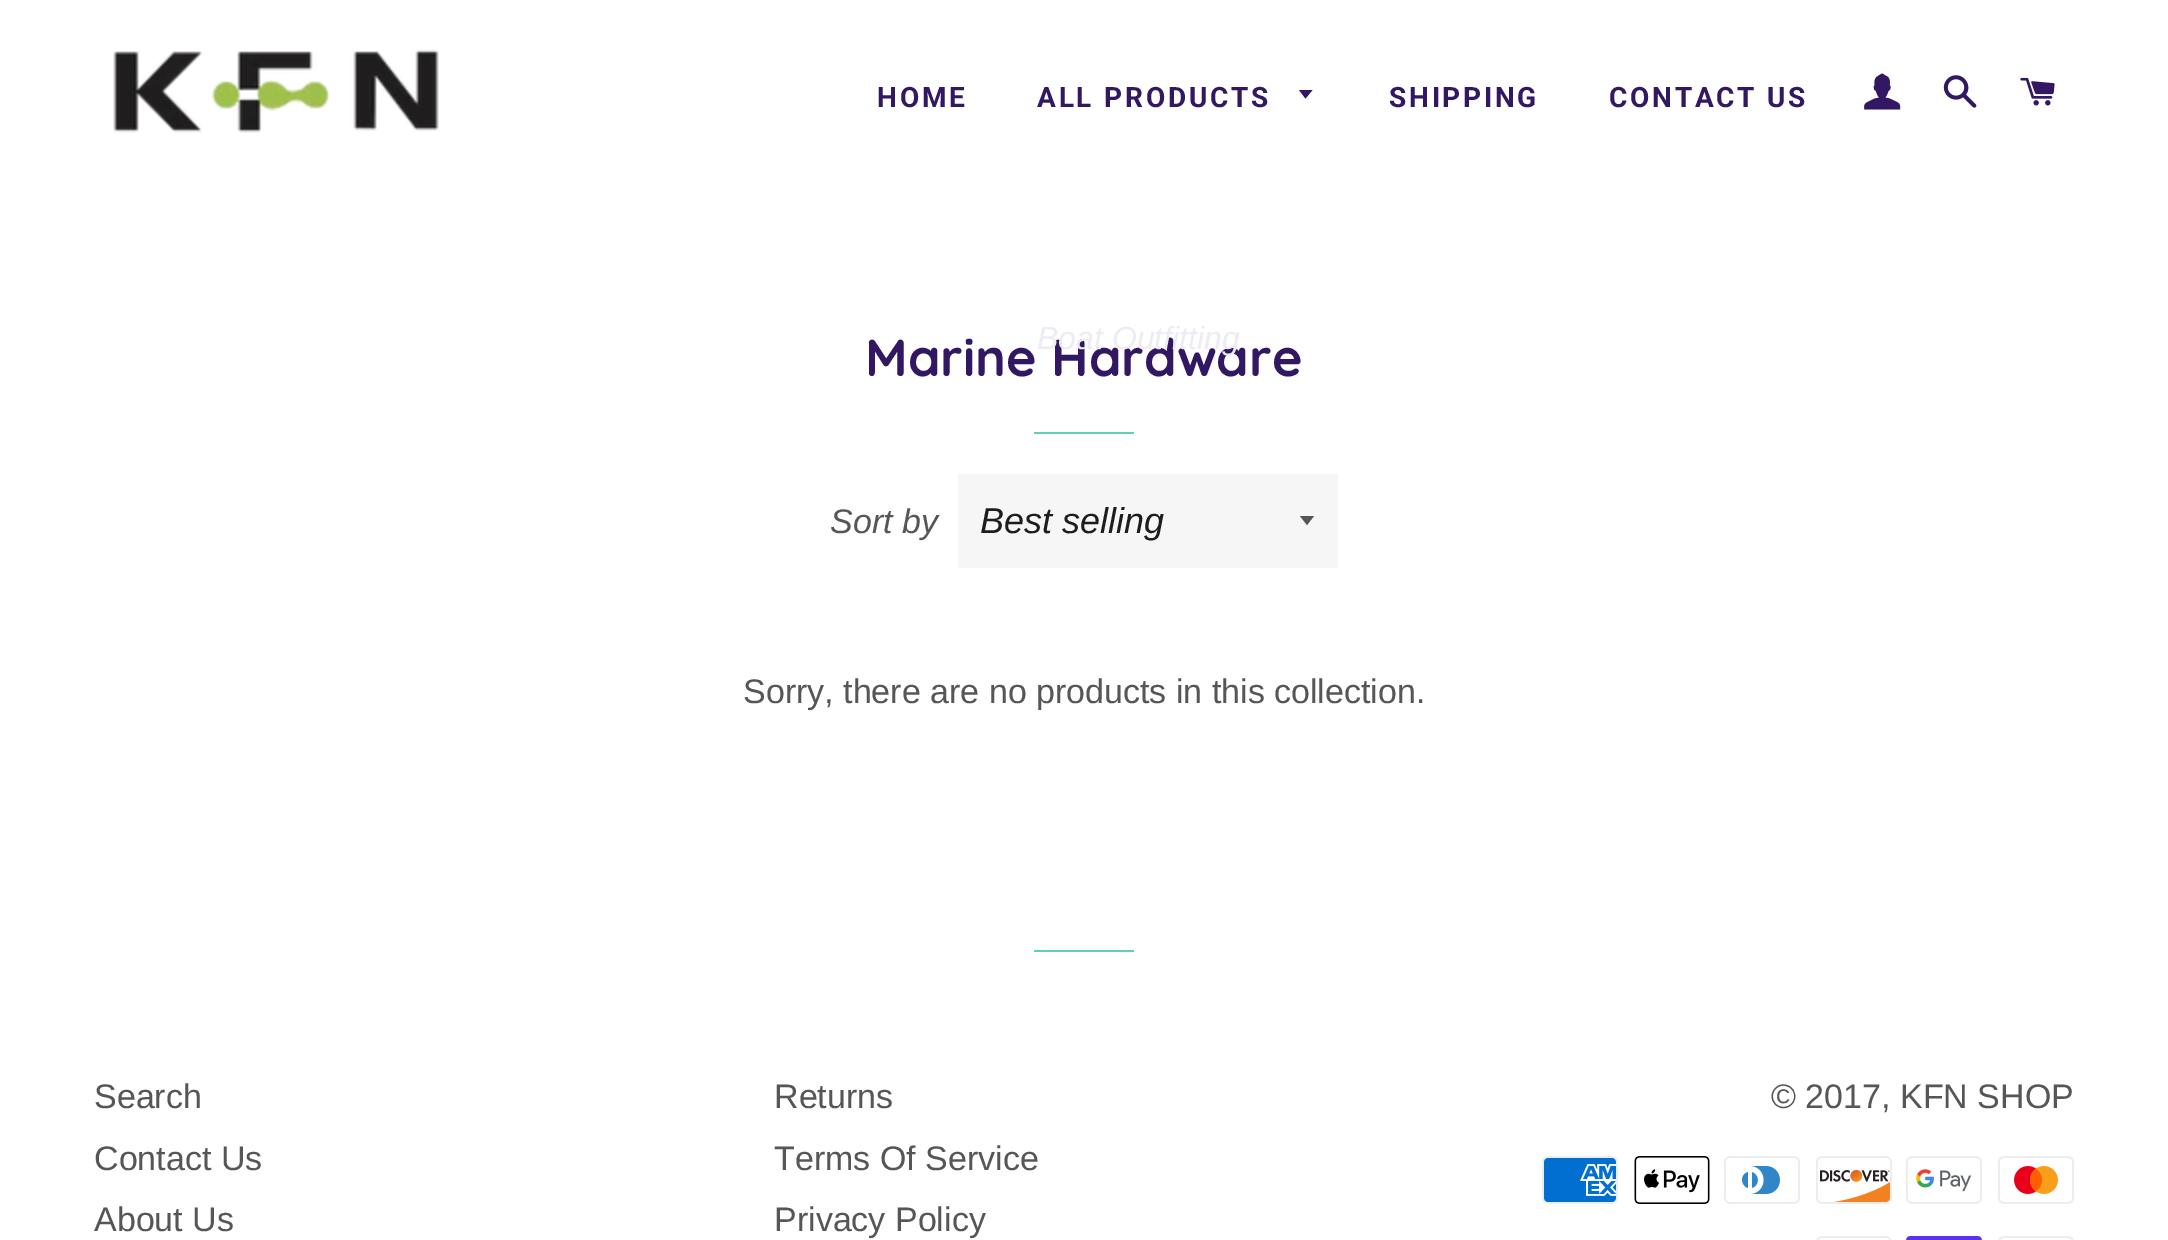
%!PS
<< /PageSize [2168 1240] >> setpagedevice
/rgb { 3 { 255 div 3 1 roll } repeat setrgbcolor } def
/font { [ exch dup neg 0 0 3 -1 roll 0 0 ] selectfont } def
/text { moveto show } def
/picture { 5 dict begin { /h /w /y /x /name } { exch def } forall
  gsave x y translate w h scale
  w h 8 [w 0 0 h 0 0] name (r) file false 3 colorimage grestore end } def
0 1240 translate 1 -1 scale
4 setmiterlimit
255 255 255 rgb
0 0 2168 1240 rectfill
(img_01.rgb) 113 49 326 84 picture
50 24 99 rgb
1299 90 moveto 6.5 8.5 rlineto 7 -8.5 rlineto closepath fill
(img_02.rgb) 1864 73 37 37 picture
(img_03.rgb) 1943 75 34 33 picture
(img_04.rgb) 2020 77 35 29 picture
93 210 180 rgb
1034 432 100 2 rectfill
246 246 246 rgb
958 474 380 94 rectfill
86 86 86 rgb
1300 516 moveto 7 9 rlineto 7 -9 rlineto closepath fill
93 210 180 rgb
1034 950 100 2 rectfill
(img_05.rgb) 1542 1156 76 48 picture
(img_06.rgb) 1634 1156 76 48 picture
(img_07.rgb) 1724 1156 76 48 picture
(img_08.rgb) 1816 1156 76 48 picture
(img_09.rgb) 1906 1156 76 48 picture
(img_10.rgb) 1998 1156 76 48 picture
(img_11.rgb) 1816 1236 76 4 picture
(img_12.rgb) 1906 1236 76 4 picture
(img_11.rgb) 1998 1236 76 4 picture
/Roboto-Bold 28 font
50 24 99 rgb
877 107 moveto 2.75 0 (HOME) ashow
1037 107 moveto 2.75 0 (ALL PRODUCTS) ashow
1389 107 moveto 2.75 0 (SHIPPING) ashow
1609 107 moveto 2.75 0 (CONTACT US) ashow
/Quicksand-Bold 52 font
(Marine Hardware) 865 376 text
/LiberationSans-Italic 32 font
238 236 242 rgb
(Boat Outfitting) 1037 349 text
/LiberationSans-Italic 34 font
86 86 86 rgb
(Sort by) 830 533 text
/LiberationSans-Italic 36 font
28 29 29 rgb
(Best selling) 980 533 text
/LiberationSans-Regular 34 font
86 86 86 rgb
(Sorry, there are no products in this collection.) 743 703 text
(Search) 94 1108 text
(Contact Us) 94 1170 text
(About Us) 94 1231 text
(Returns) 774 1108 text
(Terms Of Service) 774 1170 text
(Privacy Policy) 774 1231 text
(© 2017, KFN SHOP) 1771 1108 text
showpage
